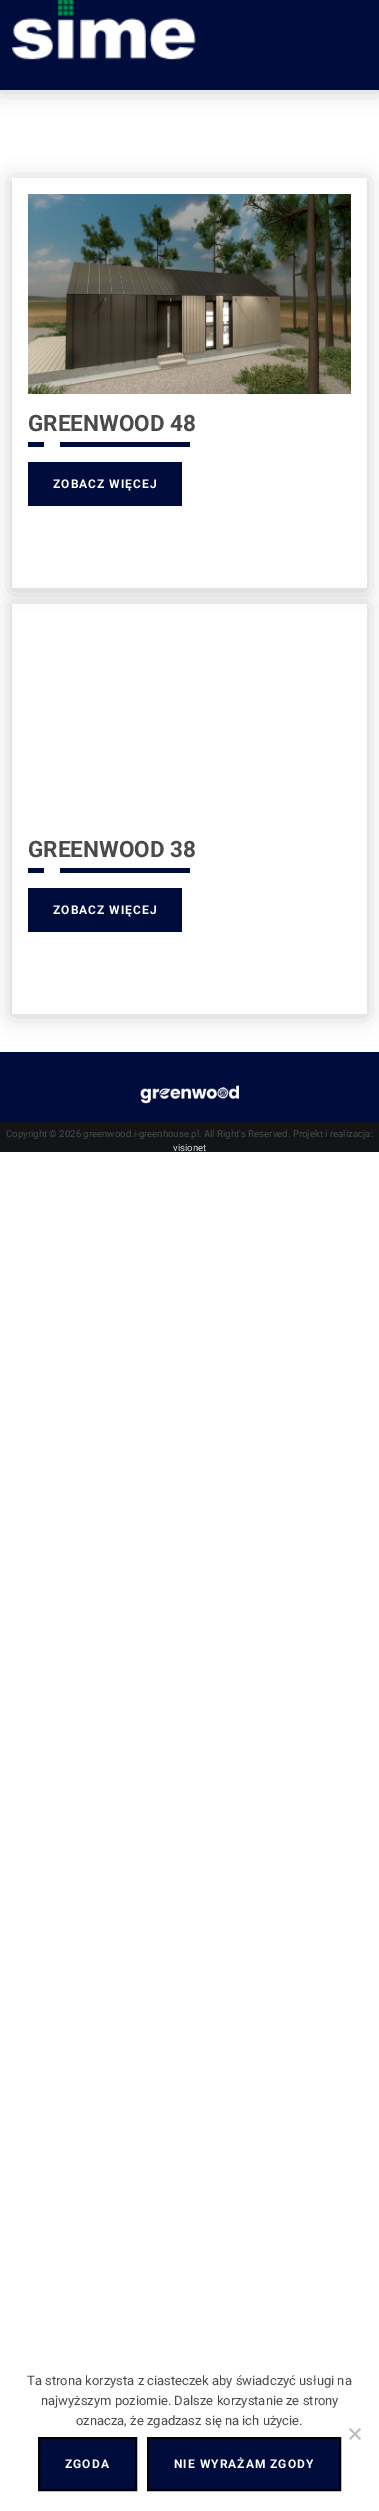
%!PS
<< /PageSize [379 2511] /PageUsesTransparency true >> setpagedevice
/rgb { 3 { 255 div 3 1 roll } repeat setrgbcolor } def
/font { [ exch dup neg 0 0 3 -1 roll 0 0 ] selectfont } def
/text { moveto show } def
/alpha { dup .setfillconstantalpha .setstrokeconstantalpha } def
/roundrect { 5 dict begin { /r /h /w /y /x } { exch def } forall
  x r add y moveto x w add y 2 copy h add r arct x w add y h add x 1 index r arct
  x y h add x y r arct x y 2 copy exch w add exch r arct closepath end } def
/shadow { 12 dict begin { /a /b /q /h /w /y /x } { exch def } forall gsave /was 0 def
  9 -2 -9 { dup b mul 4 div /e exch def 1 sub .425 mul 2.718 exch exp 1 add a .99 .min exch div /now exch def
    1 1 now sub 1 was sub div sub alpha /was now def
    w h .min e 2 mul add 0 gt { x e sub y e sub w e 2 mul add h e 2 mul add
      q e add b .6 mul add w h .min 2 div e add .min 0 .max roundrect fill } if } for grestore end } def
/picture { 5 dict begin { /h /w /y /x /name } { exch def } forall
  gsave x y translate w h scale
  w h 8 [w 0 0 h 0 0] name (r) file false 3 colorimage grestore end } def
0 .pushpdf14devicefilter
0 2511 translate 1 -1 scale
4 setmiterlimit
255 255 255 rgb
0 0 379 2511 rectfill
0 0 0 rgb
0 2 379 90 0 10 0.2 shadow
0 12 59 rgb
0 0 379 90 rectfill
(img_01.rgb) 12 0 184 60 picture
gsave
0 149 moveto 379 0 rlineto 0 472 rlineto -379 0 rlineto closepath 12 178 moveto 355 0 rlineto 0 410 rlineto -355 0 rlineto closepath eoclip newpath
0 0 0 rgb
12 180 355 410 0 10 0.2 shadow
grestore
(img_02.rgb) 28 194 323 200 picture
28 442 16 5 rectfill
60 442 130 5 rectfill
28 462 154 44 rectfill
gsave
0 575 moveto 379 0 rlineto 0 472 rlineto -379 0 rlineto closepath 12 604 moveto 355 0 rlineto 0 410 rlineto -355 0 rlineto closepath eoclip newpath
0 0 0 rgb
12 606 355 410 0 10 0.2 shadow
grestore
28 868 16 5 rectfill
60 868 130 5 rectfill
28 888 154 44 rectfill
0 1052 379 70 rectfill
(img_03.rgb) 140 1085 99 19 picture
18 20 22 rgb
0 1122 379 30 rectfill
192 192 192 rgb
359.5 2428 moveto 1.5 1.5 rlineto -10.5 10.5 rlineto -1.5 -1.5 rlineto closepath fill
349 2429.5 moveto 1.5 -1.5 rlineto 10.5 10.5 rlineto -1.5 1.5 rlineto closepath fill
0 12 59 rgb
39 2438 moveto 97 0 rlineto 0 52 rlineto -97 0 rlineto closepath gsave fill grestore
0 0 0 rgb
2 setlinewidth
stroke
0 12 59 rgb
148 2438 moveto 192 0 rlineto 0 52 rlineto -192 0 rlineto closepath gsave fill grestore
0 0 0 rgb
stroke
/Roboto-Bold 22.5 font
74 74 74 rgb
(GREENWOOD 48) 28 431 text
/Roboto-Bold 12 font
255 255 255 rgb
53 488 moveto 1 0 (ZOBACZ WIĘCEJ) ashow
/Roboto-Bold 22.5 font
74 74 74 rgb
(GREENWOOD 38) 28 857 text
/Roboto-Bold 12 font
255 255 255 rgb
53 914 moveto 1 0 (ZOBACZ WIĘCEJ) ashow
/Roboto-Regular 9.6 font
74 74 74 rgb
(Copyright © 2026 greenwood.i-greenhouse.pl. All Right's Reserved. Projekt i realizacja:) 6 1137 text
222 226 230 rgb
(visionet) 173 1151 text
/Roboto-Regular 13 font
74 74 74 rgb
(Ta strona korzysta z ciasteczek aby świadczyć usługi na) 27 2385 text
(najwyższym poziomie. Dalsze korzystanie ze strony) 41 2405 text
(oznacza, że zgadzasz się na ich użycie.) 76 2425 text
/Roboto-Bold 12 font
255 255 255 rgb
65 2468 moveto 1 0 (ZGODA) ashow
174 2468 moveto 1 0 (NIE WYRAŻAM ZGODY) ashow
.poppdf14devicefilter showpage
